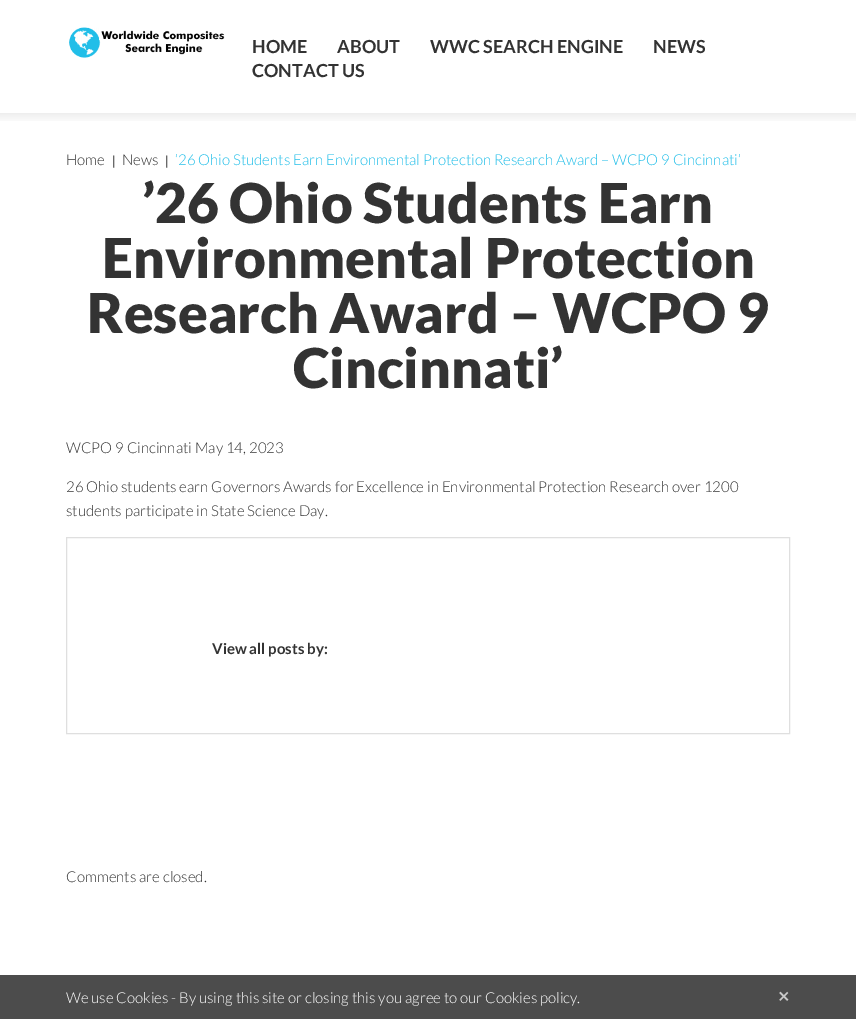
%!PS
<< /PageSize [856 1019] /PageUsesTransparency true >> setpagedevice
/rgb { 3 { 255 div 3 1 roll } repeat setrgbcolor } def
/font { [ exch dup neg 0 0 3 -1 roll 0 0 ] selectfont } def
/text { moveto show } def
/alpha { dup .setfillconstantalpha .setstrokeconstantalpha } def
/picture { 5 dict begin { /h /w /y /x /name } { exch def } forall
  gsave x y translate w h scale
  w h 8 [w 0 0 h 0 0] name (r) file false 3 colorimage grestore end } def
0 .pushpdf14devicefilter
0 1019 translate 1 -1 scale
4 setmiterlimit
255 255 255 rgb
0 0 856 1019 rectfill
(img_01.rgb) 69 27 156 31 picture
(img_02.rgb) 0 113 856 8 picture
223 223 223 rgb
66.5 537.5 723 196 rectstroke
0.7 alpha
0 0 0 rgb
0 975 856 44 rectfill
/Lato-Bold 18 font
1 alpha
51 51 51 rgb
(HOME) 252 53 text
(ABOUT) 337 53 text
(WWC SEARCH ENGINE) 430 53 text
(NEWS) 653 53 text
(CONTACT US) 252 77 text
/Lato-Light 15 font
(Home) 66 165 text
/LiberationSans-Regular 13 font
(|) 112 165 text
/Lato-Light 15 font
(News) 122 165 text
/LiberationSans-Regular 13 font
(|) 165 165 text
/Lato-Light 15 font
33 190 232 rgb
(’26 Ohio Students Earn Environmental Protection Research Award – WCPO 9 Cincinnati’) 175 165 text
/Lato-Black 55 font
51 51 51 rgb
(’26 Ohio Students Earn) 142 223 text
(Environmental Protection) 102 278 text
(Research Award – WCPO 9) 87 333 text
(Cincinnati’) 293 388 text
/Lato-Light 15 font
(WCPO 9 Cincinnati May 14, 2023) 66 453 text
(26 Ohio students earn Governors Awards for Excellence in Environmental Protection Research over 1200) 66 492 text
(students participate in State Science Day.) 66 516 text
/Lato-Bold 15 font
(View all posts by:) 212 654 text
/Lato-Light 15 font
(Comments are closed.) 66 882 text
255 255 255 rgb
(We use Cookies - By using this site or closing this you agree to our Cookies policy.) 66 1003 text
/Lato-Bold 20 font
201 201 201 rgb
(×) 778 1003 text
.poppdf14devicefilter showpage
